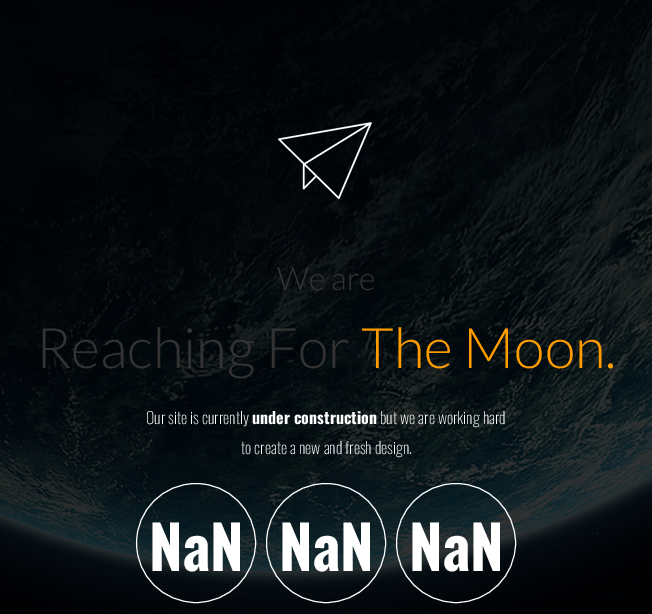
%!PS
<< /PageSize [652 614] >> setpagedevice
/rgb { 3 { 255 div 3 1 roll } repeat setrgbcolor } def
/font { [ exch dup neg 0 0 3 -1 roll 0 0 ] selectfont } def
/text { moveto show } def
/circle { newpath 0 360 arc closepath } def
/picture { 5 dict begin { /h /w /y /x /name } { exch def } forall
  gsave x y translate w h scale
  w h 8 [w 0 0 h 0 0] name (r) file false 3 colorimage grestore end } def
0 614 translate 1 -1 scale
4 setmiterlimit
255 255 255 rgb
0 0 652 614 rectfill
(img_01.rgb) 0 0 652 614 picture
(img_02.rgb) 278 122 94 77 picture
196 543 59.5 circle stroke
326 543 59.5 circle stroke
456 543 59.5 circle stroke
/Lato-Light 32 font
51 51 51 rgb
(We are) 277 290 text
/Lato-Light 56 font
(Reaching For) 36 368 text
255 156 0 rgb
(The Moon.) 361 368 text
/Oswald-ExtraLight 16 font
255 255 255 rgb
(Our site is currently) 146 424 text
/Oswald-Bold 16 font
(under construction) 252 424 text
/Oswald-ExtraLight 16 font
(but we are working hard) 380 424 text
(to create a new and fresh design.) 241 454 text
/Oswald-Bold 60 font
(NaN) 149 571 text
(NaN) 279 571 text
(NaN) 409 571 text
showpage
